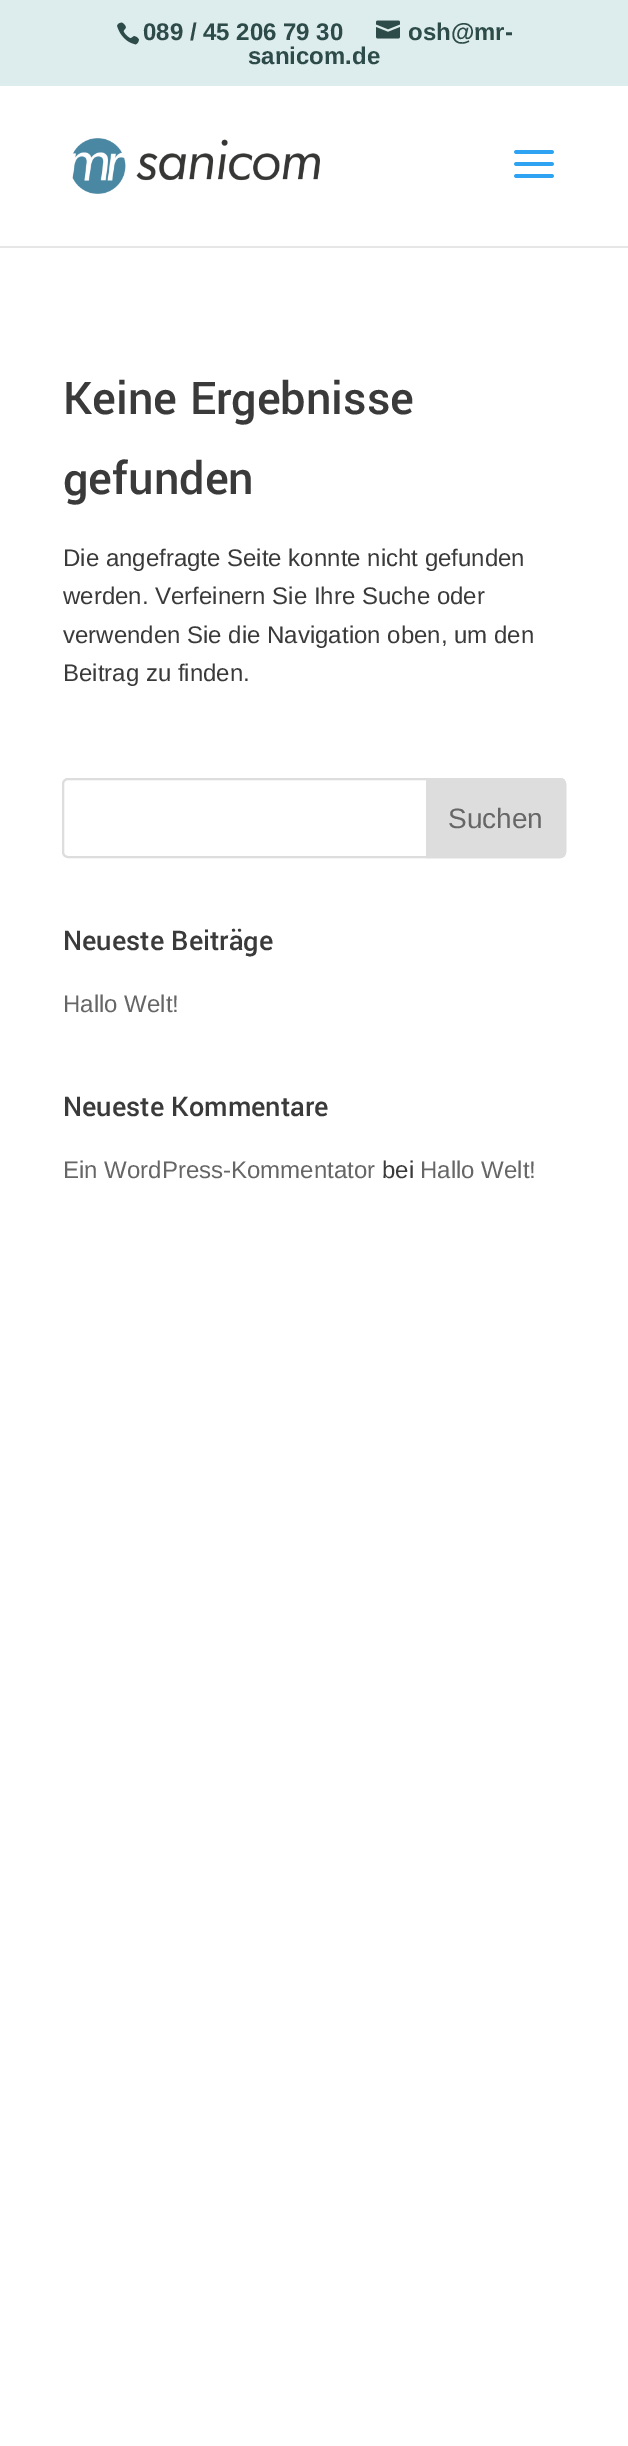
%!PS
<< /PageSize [628 2446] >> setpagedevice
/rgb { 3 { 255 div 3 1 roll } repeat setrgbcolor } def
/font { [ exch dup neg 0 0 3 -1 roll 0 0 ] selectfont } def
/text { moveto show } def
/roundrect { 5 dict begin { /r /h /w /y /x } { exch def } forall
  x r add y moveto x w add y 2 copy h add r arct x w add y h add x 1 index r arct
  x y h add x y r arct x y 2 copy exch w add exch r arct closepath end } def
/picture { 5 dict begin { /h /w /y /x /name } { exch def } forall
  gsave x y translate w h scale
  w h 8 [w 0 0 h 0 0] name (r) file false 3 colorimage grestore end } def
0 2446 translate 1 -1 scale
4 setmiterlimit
255 255 255 rgb
0 0 628 2446 rectfill
221 236 236 rgb
0 0 628 86 rectfill
(img_01.rgb) 117 22 22 23 picture
(img_02.rgb) 376 20 24 19 picture
230 230 230 rgb
0 246 628 2 rectfill
(img_03.rgb) 72 138 248 56 picture
(img_04.rgb) 514 150 40 28 picture
221 221 221 rgb
2 setlinewidth
63 779 502 78 5 roundrect stroke
427 779 moveto 133 0 rlineto 3 0 5 2 5 5 rcurveto 0 68 rlineto 0 3 -2 5 -5 5 rcurveto -133 0 rlineto closepath gsave fill grestore
stroke
/LiberationSans-Bold 24 font
44 75 73 rgb
(089 / 45 206 79 30) 143 40 text
(osh@mr-) 408 40 text
(sanicom.de) 248 64 text
/Yantramanav-Medium 50 font
58 58 58 rgb
(Keine Ergebnisse) 63 414 text
(gefunden) 63 494 text
/LiberationSans-Regular 24 font
(Die angefragte Seite konnte nicht gefunden) 63 566 text
(werden. Verfeinern Sie Ihre Suche oder) 63 604 text
(verwenden Sie die Navigation oben, um den) 63 643 text
(Beitrag zu finden.) 63 681 text
/LiberationSans-Regular 28 font
102 102 102 rgb
(Suchen) 448 828 text
/Yantramanav-Medium 30 font
58 58 58 rgb
(Neueste Beiträge) 63 950 text
/LiberationSans-Regular 24 font
102 102 102 rgb
(Hallo Welt!) 63 1012 text
/Yantramanav-Medium 30 font
58 58 58 rgb
(Neueste Kommentare) 63 1116 text
/LiberationSans-Regular 24 font
102 102 102 rgb
(Ein WordPress-Kommentator) 63 1178 text
58 58 58 rgb
(bei) 382 1178 text
102 102 102 rgb
(Hallo Welt!) 420 1178 text
showpage
